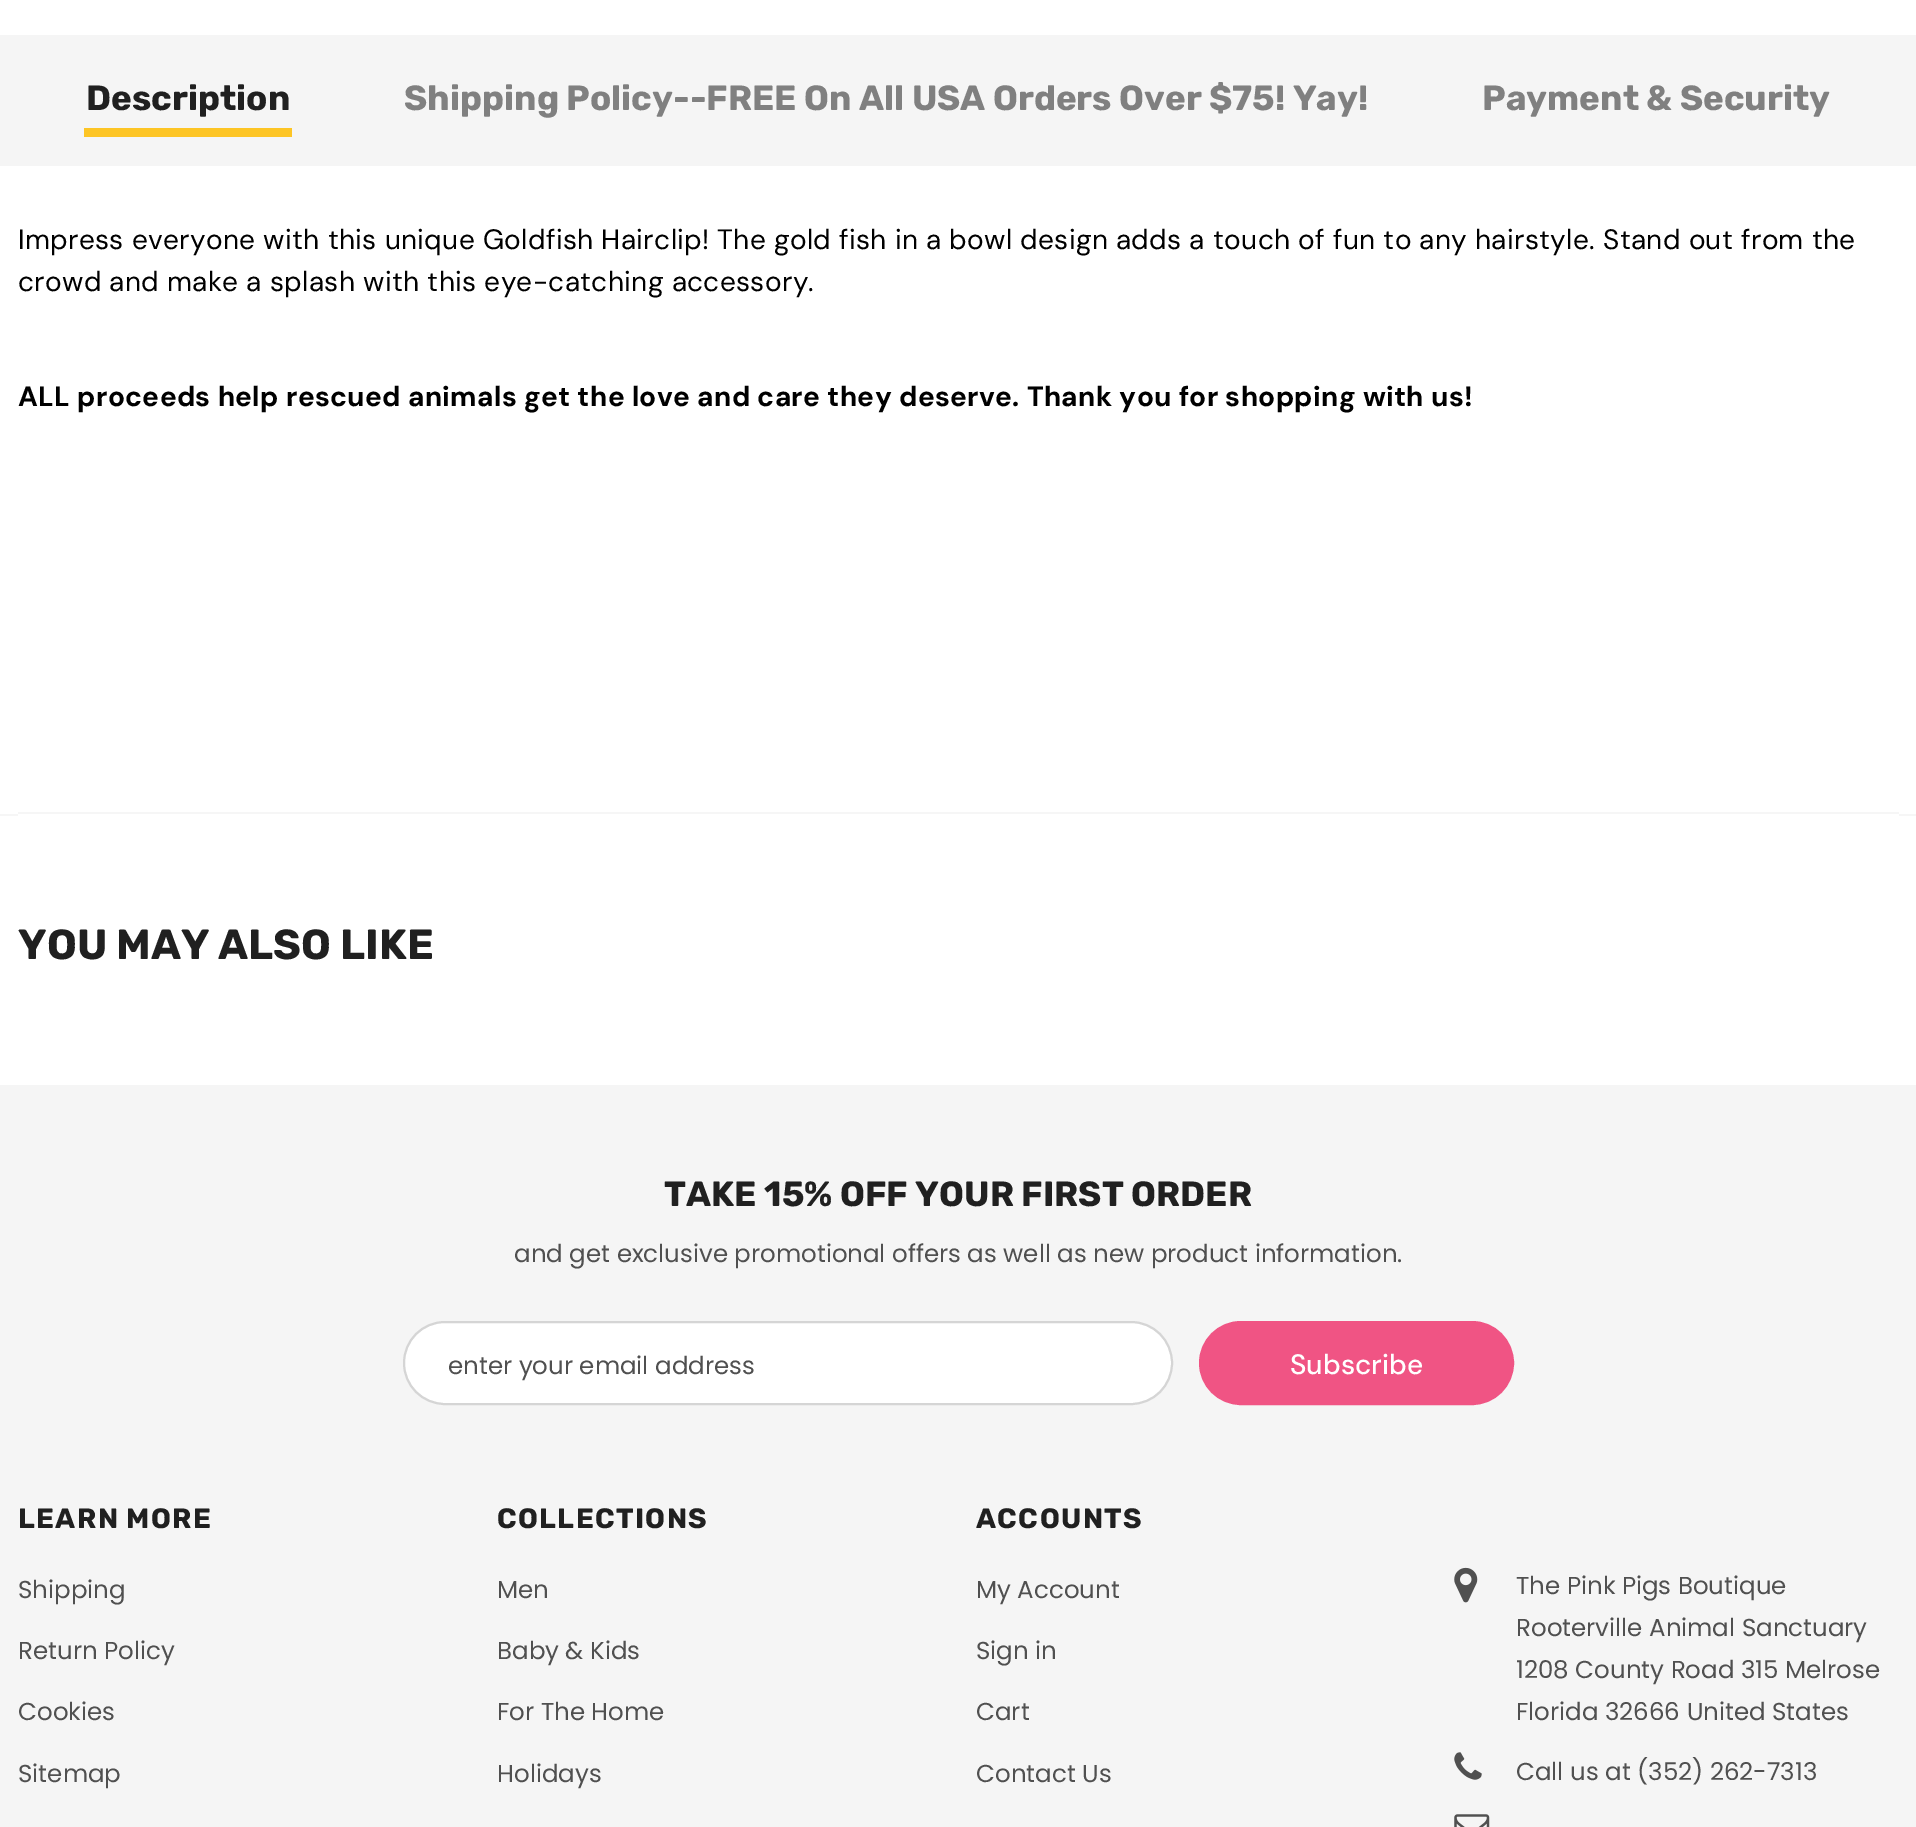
%!PS
<< /PageSize [1916 1827] >> setpagedevice
/rgb { 3 { 255 div 3 1 roll } repeat setrgbcolor } def
/font { [ exch dup neg 0 0 3 -1 roll 0 0 ] selectfont } def
/text { moveto show } def
/roundrect { 5 dict begin { /r /h /w /y /x } { exch def } forall
  x r add y moveto x w add y 2 copy h add r arct x w add y h add x 1 index r arct
  x y h add x y r arct x y 2 copy exch w add exch r arct closepath end } def
/picture { 5 dict begin { /h /w /y /x /name } { exch def } forall
  gsave x y translate w h scale
  w h 8 [w 0 0 h 0 0] name (r) file false 3 colorimage grestore end } def
0 1827 translate 1 -1 scale
4 setmiterlimit
255 255 255 rgb
0 0 1916 1827 rectfill
245 245 245 rgb
0 35 1916 131 rectfill
253 197 37 rgb
84 128 208 9 rectfill
246 246 246 rgb
18 812 1881 2 rectfill
0 814 18 2 rectfill
1899 814 17 2 rectfill
245 245 245 rgb
0 1085 1916 742 rectfill
255 255 255 rgb
404 1322 768 82 41 roundrect gsave fill grestore
213 213 213 rgb
2 setlinewidth
stroke
240 84 132 rgb
1200 1322 313 82 41 roundrect gsave fill grestore
stroke
(img_01.rgb) 1454 1567 24 36 picture
(img_02.rgb) 1454 1752 28 28 picture
(img_03.rgb) 1454 1814 36 13 picture
/Rubik-Bold 35 font
32 32 32 rgb
(Description) 86 110 text
128 128 128 rgb
(Shipping Policy--FREE On All USA Orders Over $75! Yay!) 404 110 text
(Payment & Security) 1482 110 text
/DMSans-Regular 28 font
0 0 0 rgb
18 249 moveto 0.35 0 (Impress everyone with this unique Goldfish Hairclip! The gold fish in a bowl design adds a touch of fun to any hairstyle. Stand out from the) ashow
18 291 moveto 0.35 0 (crowd and make a splash with this eye-catching accessory.) ashow
/DMSans-Bold 28 font
18 406 moveto 0.35 0 (ALL proceeds help rescued animals get the love and care they deserve. Thank you for shopping with us!) ashow
/Rubik-Bold 42 font
32 32 32 rgb
(YOU MAY ALSO LIKE) 18 959 text
/Rubik-Bold 35 font
(TAKE 15% OFF YOUR FIRST ORDER) 664 1206 text
/Poppins-Regular 24.5 font
80 80 80 rgb
(and get exclusive promotional offers as well as new product information.) 514 1262 text
(enter your email address) 448 1374 text
/DMSans-Medium 28 font
255 255 255 rgb
(Subscribe) 1290 1374 text
/Rubik-Bold 28 font
32 32 32 rgb
18 1528 moveto 1.4 0 (LEARN MORE) ashow
/Poppins-Regular 24.5 font
80 80 80 rgb
(Shipping) 18 1598 text
(Return Policy) 18 1659 text
(Cookies) 18 1720 text
(Sitemap) 18 1782 text
/Rubik-Bold 28 font
32 32 32 rgb
497 1528 moveto 1.4 0 (COLLECTIONS) ashow
/Poppins-Regular 24.5 font
80 80 80 rgb
(Men) 497 1598 text
(Baby & Kids) 497 1659 text
(For The Home) 497 1720 text
(Holidays) 497 1782 text
/Rubik-Bold 28 font
32 32 32 rgb
976 1528 moveto 1.4 0 (ACCOUNTS) ashow
/Poppins-Regular 24.5 font
80 80 80 rgb
(My Account) 976 1598 text
(Sign in) 976 1659 text
(Cart) 976 1720 text
(Contact Us) 976 1782 text
(The Pink Pigs Boutique) 1516 1594 text
(Rooterville Animal Sanctuary) 1516 1636 text
(1208 County Road 315 Melrose) 1516 1678 text
(Florida 32666 United States) 1516 1720 text
(Call us at \(352\) 262-7313) 1516 1780 text
showpage
